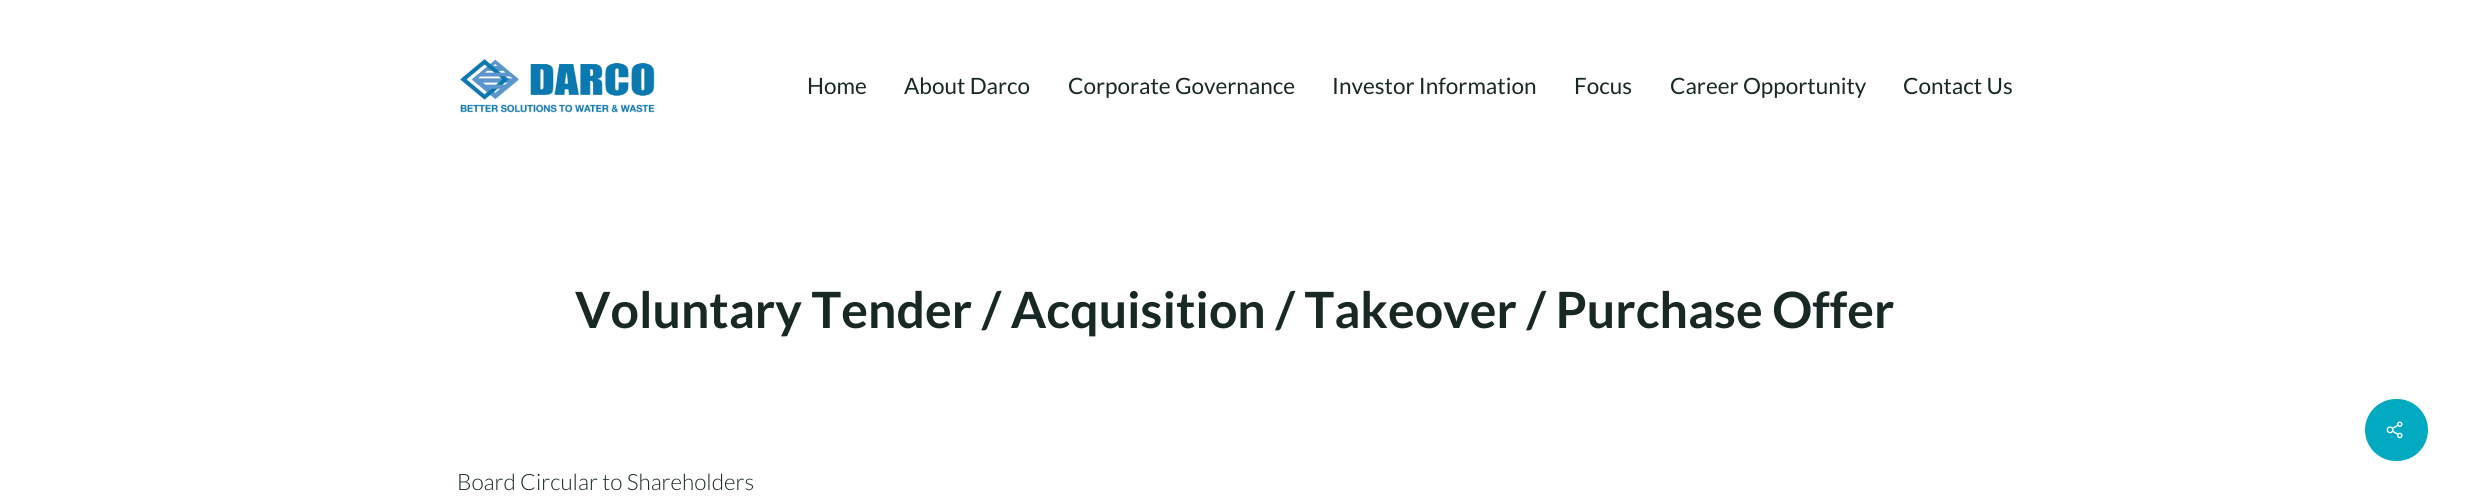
import math
import cairo

surface = cairo.ImageSurface(cairo.Format.RGB24, 2469, 503)
ctx = cairo.Context(surface)
options = cairo.FontOptions()
options.set_hint_metrics(cairo.HintMetrics.OFF)
options.set_hint_style(cairo.HintStyle.NONE)
ctx.set_font_options(options)
ctx.set_miter_limit(4)


def ink(r, g, b):
    ctx.set_source_rgb(r / 255, g / 255, b / 255)


def write(x, y, s, family, size, color, bold=False, italic=False):
    ctx.select_font_face(family, cairo.FontSlant.ITALIC if italic else cairo.FontSlant.NORMAL, cairo.FontWeight.BOLD if bold else cairo.FontWeight.NORMAL)
    ctx.set_font_size(size)
    ink(*color)
    ctx.move_to(x, y)
    ctx.show_text(s)


def round_path(x, y, w, h, r):
    ctx.new_sub_path()
    for i, (u, v) in enumerate([(x + w - r, y + h - r), (x + r, y + h - r), (x + r, y + r), (x + w - r, y + r)]):
        ctx.arc(u, v, r, i * math.pi / 2, (i + 1) * math.pi / 2)
    ctx.close_path()


def paste(path, x, y, w, h):
    ctx.save()
    ctx.set_source_surface(cairo.ImageSurface.create_from_png(path), x, y)
    ctx.rectangle(x, y, w, h)
    ctx.fill()
    ctx.restore()


s1 = dict(family="Lato", size=22.5, color=(24, 40, 37))
s2 = dict(family="Lato", size=50, color=(24, 40, 37), bold=True)
s3 = dict(family="Lato Light", size=22.5, color=(24, 40, 37))

ink(255, 255, 255)
ctx.paint()
paste("pic1.png", 460, 59, 195, 54)
write(807, 94, "Home", **s1)
write(904, 94, "About Darco", **s1)
write(1068, 94, "Corporate Governance", **s1)
write(1332, 94, "Investor Information", **s1)
write(1574, 94, "Focus", **s1)
write(1670, 94, "Career Opportunity", **s1)
write(1903, 94, "Contact Us", **s1)
write(575, 328, "Voluntary Tender / Acquisition / Takeover / Purchase Offer", **s2)
write(457, 490, "Board Circular to Shareholders", **s3)
ink(1, 169, 193)
round_path(2365, 399, 63, 62, 31)
ctx.fill()
paste("pic2.png", 2386, 421, 17, 18)
surface.write_to_png("screenshot.png")
